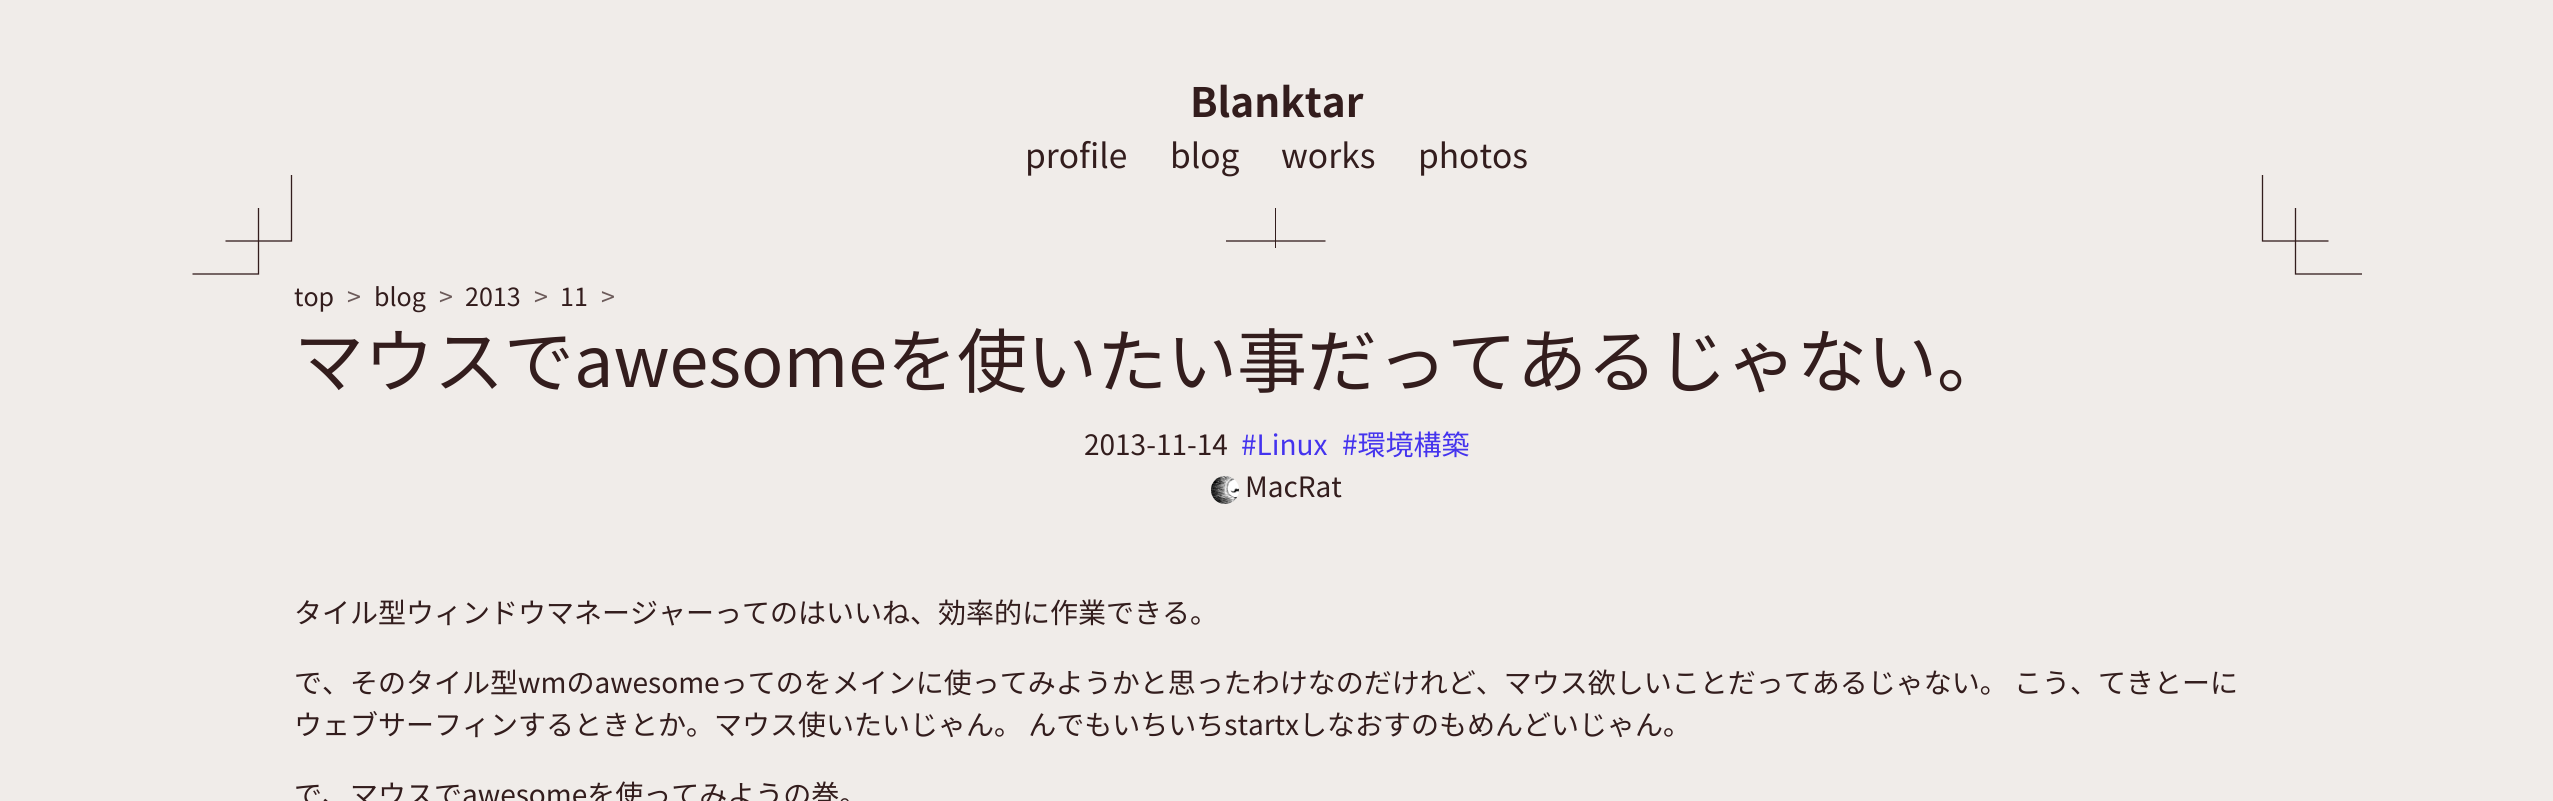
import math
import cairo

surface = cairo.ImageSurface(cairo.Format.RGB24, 2553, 801)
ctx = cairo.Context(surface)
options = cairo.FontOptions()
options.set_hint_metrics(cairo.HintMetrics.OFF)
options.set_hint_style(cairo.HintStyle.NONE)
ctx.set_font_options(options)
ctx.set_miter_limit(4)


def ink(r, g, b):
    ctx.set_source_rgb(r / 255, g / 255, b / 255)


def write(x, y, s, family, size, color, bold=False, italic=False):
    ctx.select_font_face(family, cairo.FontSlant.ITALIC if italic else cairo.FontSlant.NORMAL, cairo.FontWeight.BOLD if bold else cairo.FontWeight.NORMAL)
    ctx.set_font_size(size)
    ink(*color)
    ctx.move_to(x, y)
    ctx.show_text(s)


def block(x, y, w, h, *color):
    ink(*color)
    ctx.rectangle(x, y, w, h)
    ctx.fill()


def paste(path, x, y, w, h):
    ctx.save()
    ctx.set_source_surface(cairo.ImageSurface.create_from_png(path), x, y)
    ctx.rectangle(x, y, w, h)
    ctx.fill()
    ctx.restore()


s1 = dict(family="Noto Sans JP", size=40.5, color=(51, 29, 29), bold=True)
s2 = dict(family="Noto Sans JP", size=33.5, color=(51, 29, 29))
s3 = dict(family="Noto Sans JP", size=25, color=(51, 29, 29))
s4 = dict(family="Noto Sans JP", size=25, color=(108, 91, 90))
s5 = dict(family="Noto Sans JP", size=70, color=(51, 29, 29))
s6 = dict(family="Noto Sans JP", size=28, color=(51, 29, 29))
s7 = dict(family="Noto Sans JP", size=28, color=(68, 51, 238))

ink(240, 236, 233)
ctx.paint()
write(1190, 117, "Blanktar", **s1)
write(1025, 168, "profile", **s2)
write(1170, 168, "blog", **s2)
write(1281, 168, "works", **s2)
write(1418, 168, "photos", **s2)
ctx.new_path()
ctx.move_to(291.5, 175)
ctx.line_to(291.5, 241)
ctx.line_to(225.5, 241)
ctx.set_line_width(1.3)
ctx.stroke()
ctx.new_path()
ctx.move_to(258.5, 208)
ctx.line_to(258.5, 274)
ctx.line_to(192.5, 274)
ctx.stroke()
ctx.new_path()
ctx.move_to(1226, 241)
ctx.line_to(1325.5, 241)
ctx.stroke()
block(1275, 208, 1, 40, 51, 29, 29)
ctx.new_path()
ctx.move_to(2262.5, 175)
ctx.line_to(2262.5, 241)
ctx.line_to(2328.5, 241)
ctx.stroke()
ctx.new_path()
ctx.move_to(2295.5, 208)
ctx.line_to(2295.5, 274)
ctx.line_to(2362, 274)
ctx.stroke()
write(294, 306, "top", **s3)
write(347, 306, ">", **s4)
write(374, 306, "blog", **s3)
write(439, 306, ">", **s4)
write(465, 306, "2013", **s3)
write(534, 306, ">", **s4)
write(560, 306, "11", **s3)
write(601, 306, ">", **s4)
write(294, 387, "マウスでawesomeを使いたい事だってあるじゃない。", **s5)
write(1084, 455, "2013-11-14", **s6)
write(1241, 455, "#Linux", **s7)
write(1342, 455, "#環境構築", **s7)
paste("pic1.png", 1211, 476, 28, 28)
write(1245, 497, "MacRat", **s6)
write(294, 623, "タイル型ウィンドウマネージャーってのはいいね、効率的に作業できる。", **s6)
write(294, 693, "で、そのタイル型wmのawesomeってのをメインに使ってみようかと思ったわけなのだけれど、マウス欲しいことだってあるじゃない。 こう、てきとーに", **s6)
write(294, 735, "ウェブサーフィンするときとか。マウス使いたいじゃん。 んでもいちいちstartxしなおすのもめんどいじゃん。", **s6)
write(294, 805, "で、マウスでawesomeを使ってみようの巻。", **s6)
surface.write_to_png("screenshot.png")
